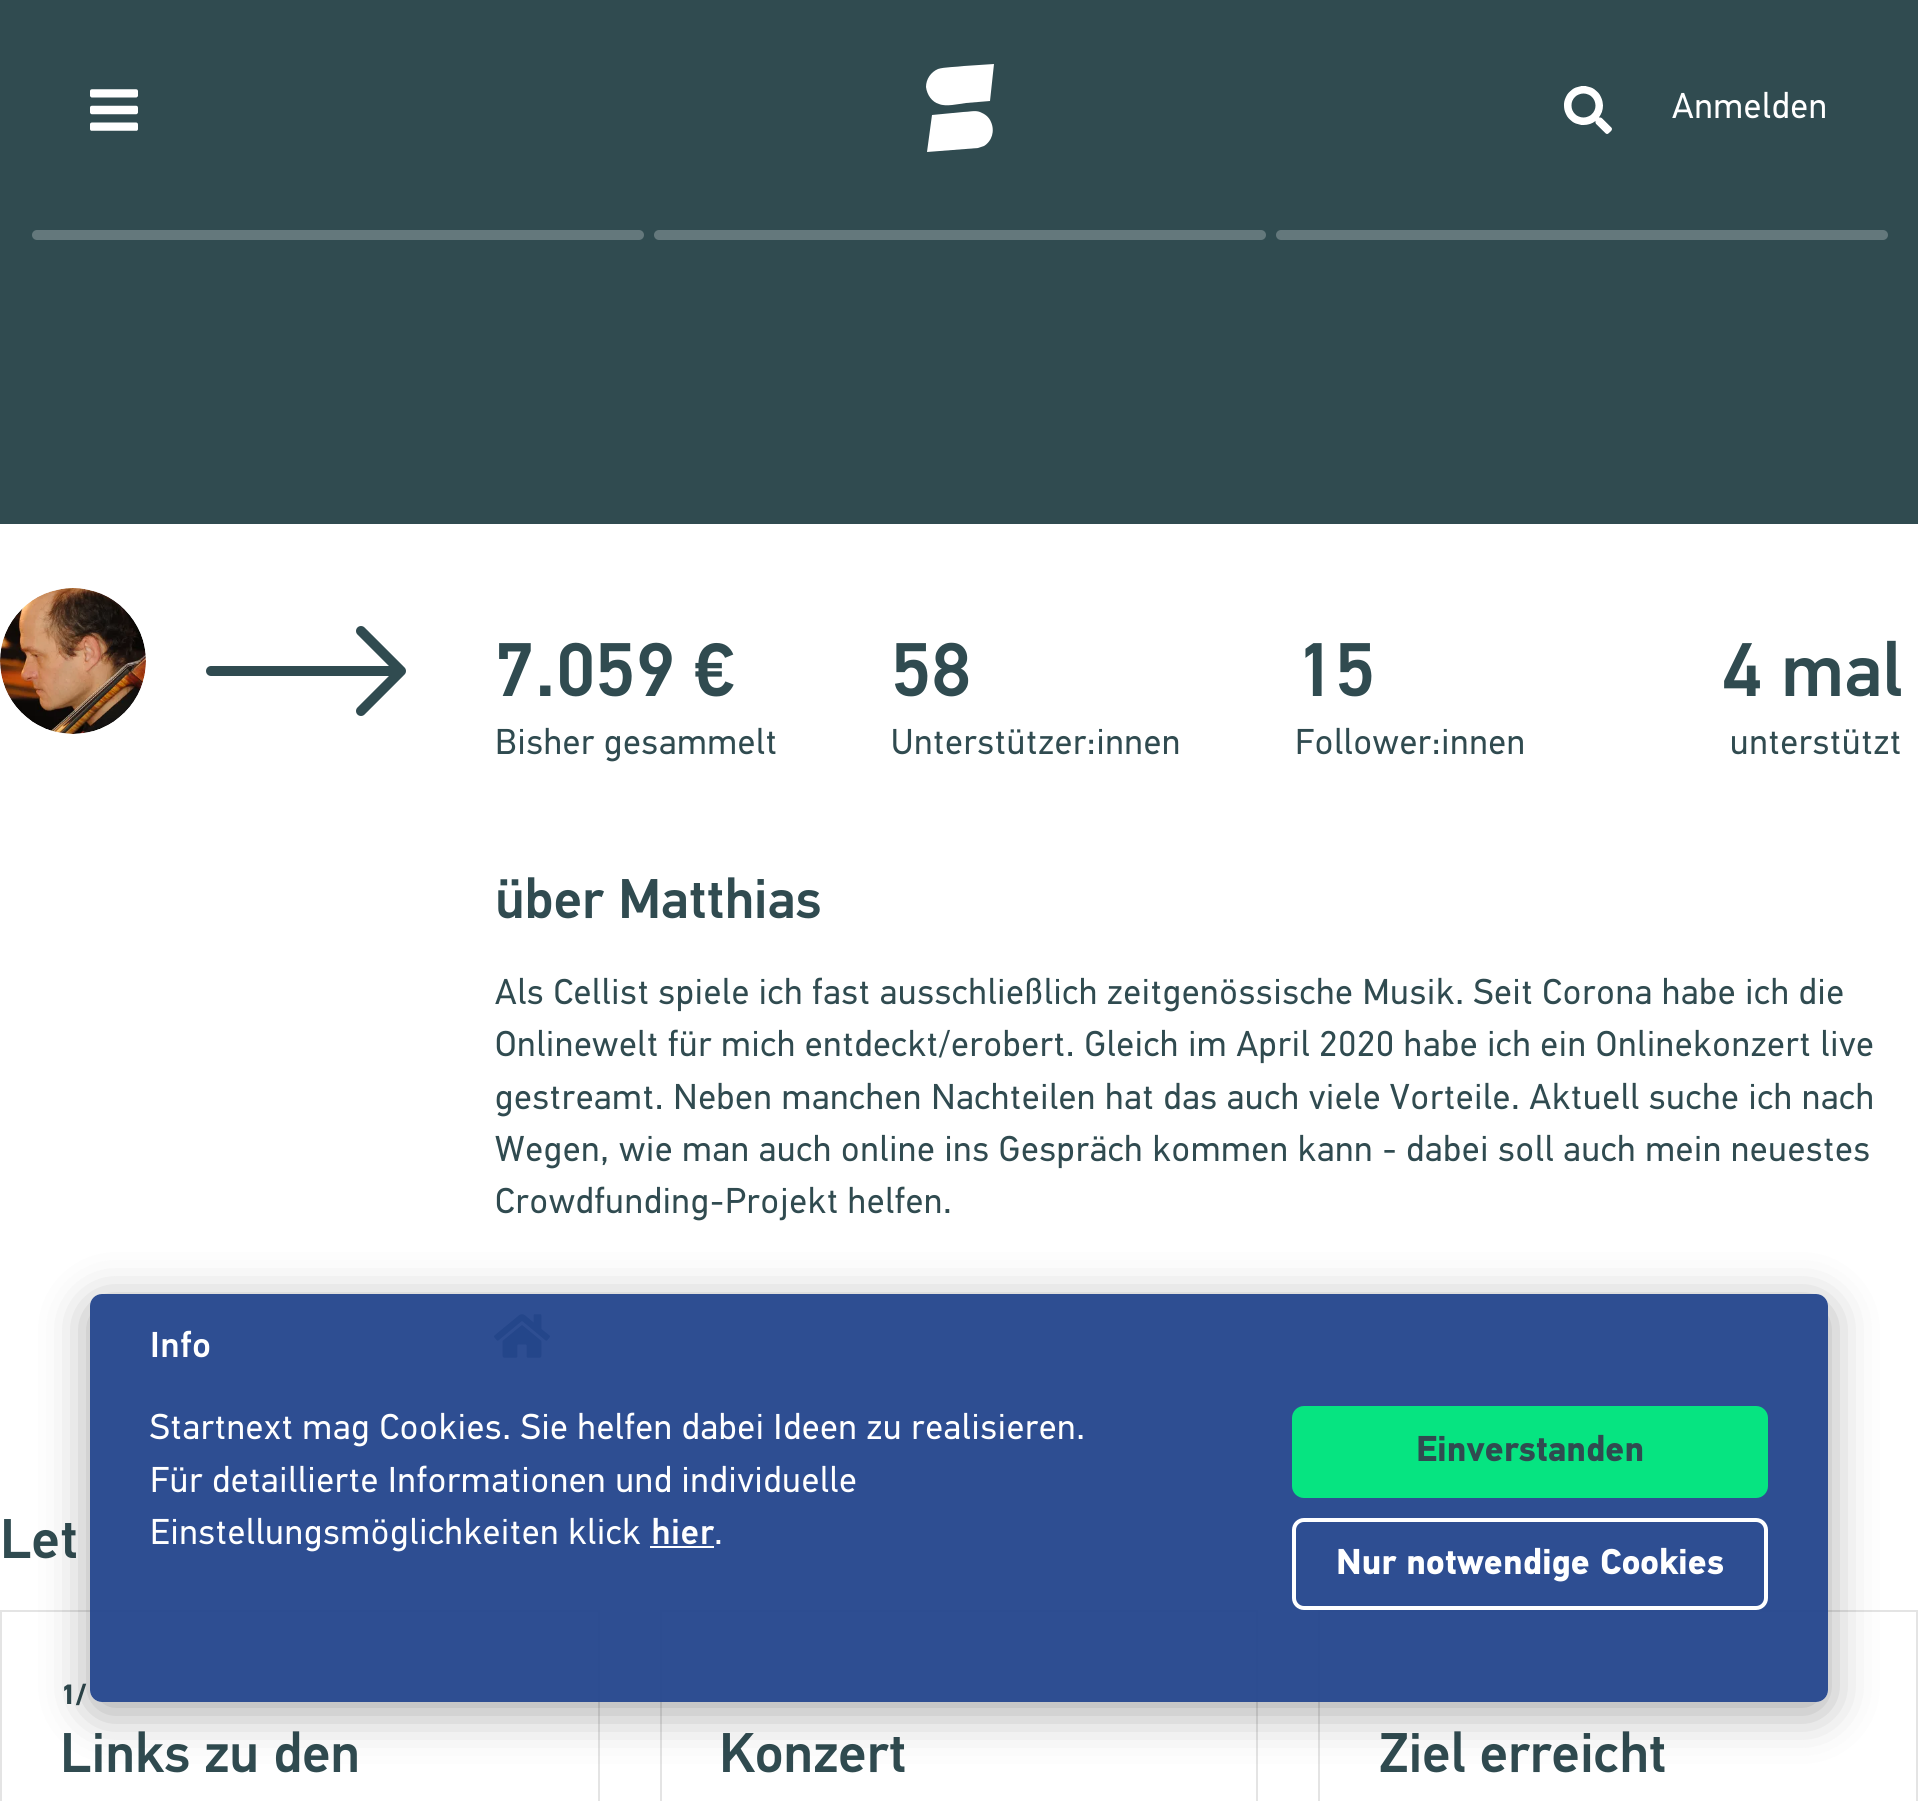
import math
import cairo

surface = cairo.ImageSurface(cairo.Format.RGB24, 1918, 1801)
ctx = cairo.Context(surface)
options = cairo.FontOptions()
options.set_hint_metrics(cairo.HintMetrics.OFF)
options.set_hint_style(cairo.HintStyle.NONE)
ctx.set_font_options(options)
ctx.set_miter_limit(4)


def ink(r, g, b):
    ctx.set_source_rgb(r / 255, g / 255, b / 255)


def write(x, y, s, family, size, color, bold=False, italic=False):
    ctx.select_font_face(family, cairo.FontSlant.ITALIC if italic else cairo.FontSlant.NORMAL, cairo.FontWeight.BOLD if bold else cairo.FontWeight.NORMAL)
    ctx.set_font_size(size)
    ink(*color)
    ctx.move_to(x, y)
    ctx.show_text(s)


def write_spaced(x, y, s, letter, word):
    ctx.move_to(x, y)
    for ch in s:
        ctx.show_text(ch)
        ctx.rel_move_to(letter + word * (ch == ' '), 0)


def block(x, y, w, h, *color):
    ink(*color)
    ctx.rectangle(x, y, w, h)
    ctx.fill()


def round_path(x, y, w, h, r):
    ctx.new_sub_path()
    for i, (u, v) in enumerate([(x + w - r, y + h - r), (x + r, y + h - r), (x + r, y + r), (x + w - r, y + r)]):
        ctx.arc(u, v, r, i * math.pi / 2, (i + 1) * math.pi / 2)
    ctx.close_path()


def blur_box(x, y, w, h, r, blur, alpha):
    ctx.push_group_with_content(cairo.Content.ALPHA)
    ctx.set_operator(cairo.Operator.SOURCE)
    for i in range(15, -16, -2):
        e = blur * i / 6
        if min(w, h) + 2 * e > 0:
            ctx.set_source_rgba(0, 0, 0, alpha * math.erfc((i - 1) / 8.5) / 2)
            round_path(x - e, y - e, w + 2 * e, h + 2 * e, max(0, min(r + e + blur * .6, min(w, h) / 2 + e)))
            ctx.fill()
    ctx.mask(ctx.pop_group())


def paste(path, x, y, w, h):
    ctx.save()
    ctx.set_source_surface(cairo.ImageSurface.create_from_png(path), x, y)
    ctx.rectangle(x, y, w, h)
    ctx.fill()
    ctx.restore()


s1 = dict(family="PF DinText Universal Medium", size=76, color=(48, 75, 80))
s2 = dict(family="PF DinText Universal Medium", size=56, color=(48, 75, 80))
s3 = dict(family="PF DinText Universal", size=36, color=(48, 75, 80), bold=True)
s4 = dict(family="PF DinText Universal", size=36, color=(255, 255, 255), bold=True)

ink(48, 75, 80)
ctx.paint()
paste("pic1.png", 90, 89, 48, 42)
ink(255, 255, 255)
ctx.new_path()
ctx.move_to(994, 64)
ctx.line_to(990, 101)
ctx.line_to(966, 103)
ctx.curve_to(958, 104, 946, 107, 939, 104)
ctx.curve_to(932, 102, 927, 95, 926, 87)
ctx.curve_to(926, 79, 931, 72, 938, 69)
ctx.curve_to(944, 67, 957, 67, 964, 66)
ctx.close_path()
ctx.fill()
ctx.new_path()
ctx.move_to(927, 152)
ctx.line_to(932, 115)
ctx.line_to(963, 112)
ctx.curve_to(969, 112, 975, 110, 980, 112)
ctx.curve_to(985, 114, 989, 117, 991, 122)
ctx.curve_to(995, 131, 992, 141, 984, 146)
ctx.line_to(978, 148)
ctx.close_path()
ctx.fill()
paste("pic2.png", 1564, 86, 48, 48)
ctx.select_font_face("PF DinText Universal")
ctx.set_font_size(36)
write_spaced(1672, 118, "Anmelden", 0.9, 0)
ink(100, 120, 124)
round_path(32, 230, 612, 10, 5)
ctx.fill()
round_path(654, 230, 612, 10, 5)
ctx.fill()
round_path(1276, 230, 612, 10, 5)
ctx.fill()
block(0, 524, 1918, 1277, 255, 255, 255)
ink(245, 245, 245)
ctx.arc(73, 661, 73, 0, 2 * math.pi)
ctx.fill()
paste("pic3.png", 0, 588, 146, 146)
ctx.new_path()
ctx.move_to(393, 671)
ctx.line_to(211, 671)
ctx.move_to(361, 631)
ctx.line_to(401, 671)
ctx.move_to(361, 711)
ctx.line_to(401, 671)
ink(48, 75, 80)
ctx.set_line_width(10)
ctx.set_line_cap(cairo.LineCap.ROUND)
ctx.stroke()
write(495, 696, "7.059 €", **s1)
ctx.select_font_face("PF DinText Universal")
ctx.set_font_size(36)
write_spaced(495, 754, "Bisher gesammelt", 0.9, 0)
write(891, 696, "58", **s1)
ctx.select_font_face("PF DinText Universal")
ctx.set_font_size(36)
write_spaced(891, 754, "Unterstützer:innen", 0.9, 0)
write(1295, 696, "15", **s1)
ctx.select_font_face("PF DinText Universal")
ctx.set_font_size(36)
write_spaced(1295, 754, "Follower:innen", 0.9, 0)
write(1722, 696, "4 mal", **s1)
ctx.select_font_face("PF DinText Universal")
ctx.set_font_size(36)
write_spaced(1730, 754, "unterstützt", 0.9, 0)
write(495, 918, "über Matthias", **s2)
ctx.select_font_face("PF DinText Universal")
ctx.set_font_size(36)
write_spaced(495, 1004, "Als Cellist spiele ich fast ausschließlich zeitgenössische Musik. Seit Corona habe ich die", 0.9, 0)
write_spaced(495, 1056, "Onlinewelt für mich entdeckt/erobert. Gleich im April 2020 habe ich ein Onlinekonzert live", 0.9, 0)
write_spaced(495, 1109, "gestreamt. Neben manchen Nachteilen hat das auch viele Vorteile. Aktuell suche ich nach", 0.9, 0)
write_spaced(495, 1161, "Wegen, wie man auch online ins Gespräch kommen kann - dabei soll auch mein neuestes", 0.9, 0)
write_spaced(495, 1213, "Crowdfunding-Projekt helfen.", 0.9, 0)
paste("pic4.png", 494, 1314, 56, 44)
write(0, 1558, "Let", **s2)
ctx.rectangle(1, 1611, 598, 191)
ink(228, 228, 228)
ctx.set_line_width(2)
ctx.set_line_cap(cairo.LineCap.BUTT)
ctx.stroke()
ctx.select_font_face("PF DinText Universal", cairo.FontSlant.NORMAL, cairo.FontWeight.BOLD)
ctx.set_font_size(28)
ink(48, 75, 80)
write_spaced(60, 1704, "1/", 0.9, 0)
write(60, 1772, "Links zu den", **s2)
ctx.rectangle(661, 1611, 596, 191)
ink(228, 228, 228)
ctx.stroke()
write(719, 1772, "Konzert", **s2)
ctx.rectangle(1319, 1611, 598, 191)
ink(228, 228, 228)
ctx.stroke()
write(1379, 1772, "Ziel erreicht", **s2)
ctx.save()
ctx.set_fill_rule(cairo.FillRule.EVEN_ODD)
ctx.new_path()
ctx.move_to(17, 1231)
ctx.line_to(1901, 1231)
ctx.line_to(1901, 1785)
ctx.line_to(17, 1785)
ctx.close_path()
ctx.move_to(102, 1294)
ctx.line_to(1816, 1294)
ctx.curve_to(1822.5, 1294, 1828, 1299.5, 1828, 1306)
ctx.line_to(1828, 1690)
ctx.curve_to(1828, 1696.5, 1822.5, 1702, 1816, 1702)
ctx.line_to(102, 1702)
ctx.curve_to(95.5, 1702, 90, 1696.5, 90, 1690)
ctx.line_to(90, 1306)
ctx.curve_to(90, 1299.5, 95.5, 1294, 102, 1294)
ctx.close_path()
ctx.clip()
ink(0, 0, 0)
blur_box(90, 1304, 1738, 408, 12, 24, 0.35)
ctx.restore()
ctx.set_source_rgba(0.141, 0.275, 0.553, 0.95)
round_path(90, 1294, 1738, 408, 12)
ctx.fill()
ctx.set_font_size(36)
ink(255, 255, 255)
write_spaced(150, 1357, "Info", 0.9, 0)
ctx.select_font_face("PF DinText Universal")
write_spaced(150, 1439, "Startnext mag Cookies. Sie helfen dabei Ideen zu realisieren.", 0.9, 0)
write_spaced(150, 1492, "Für detaillierte Informationen und individuelle", 0.9, 0)
write_spaced(150, 1544, "Einstellungsmöglichkeiten klick", 0.9, 0)
ctx.select_font_face("PF DinText Universal Medium")
write_spaced(651, 1544, "hier", 0.9, 0)
block(650, 1546, 64, 2, 255, 255, 255)
ctx.select_font_face("PF DinText Universal")
write_spaced(714, 1544, ".", 0.9, 0)
ink(6, 228, 129)
round_path(1294, 1408, 472, 88, 10)
ctx.fill_preserve()
ctx.set_line_width(4)
ctx.stroke()
write(1416, 1461, "Einverstanden", **s3)
round_path(1294, 1520, 472, 88, 10)
ink(255, 255, 255)
ctx.stroke()
write(1336, 1574, "Nur notwendige Cookies", **s4)
surface.write_to_png("screenshot.png")
